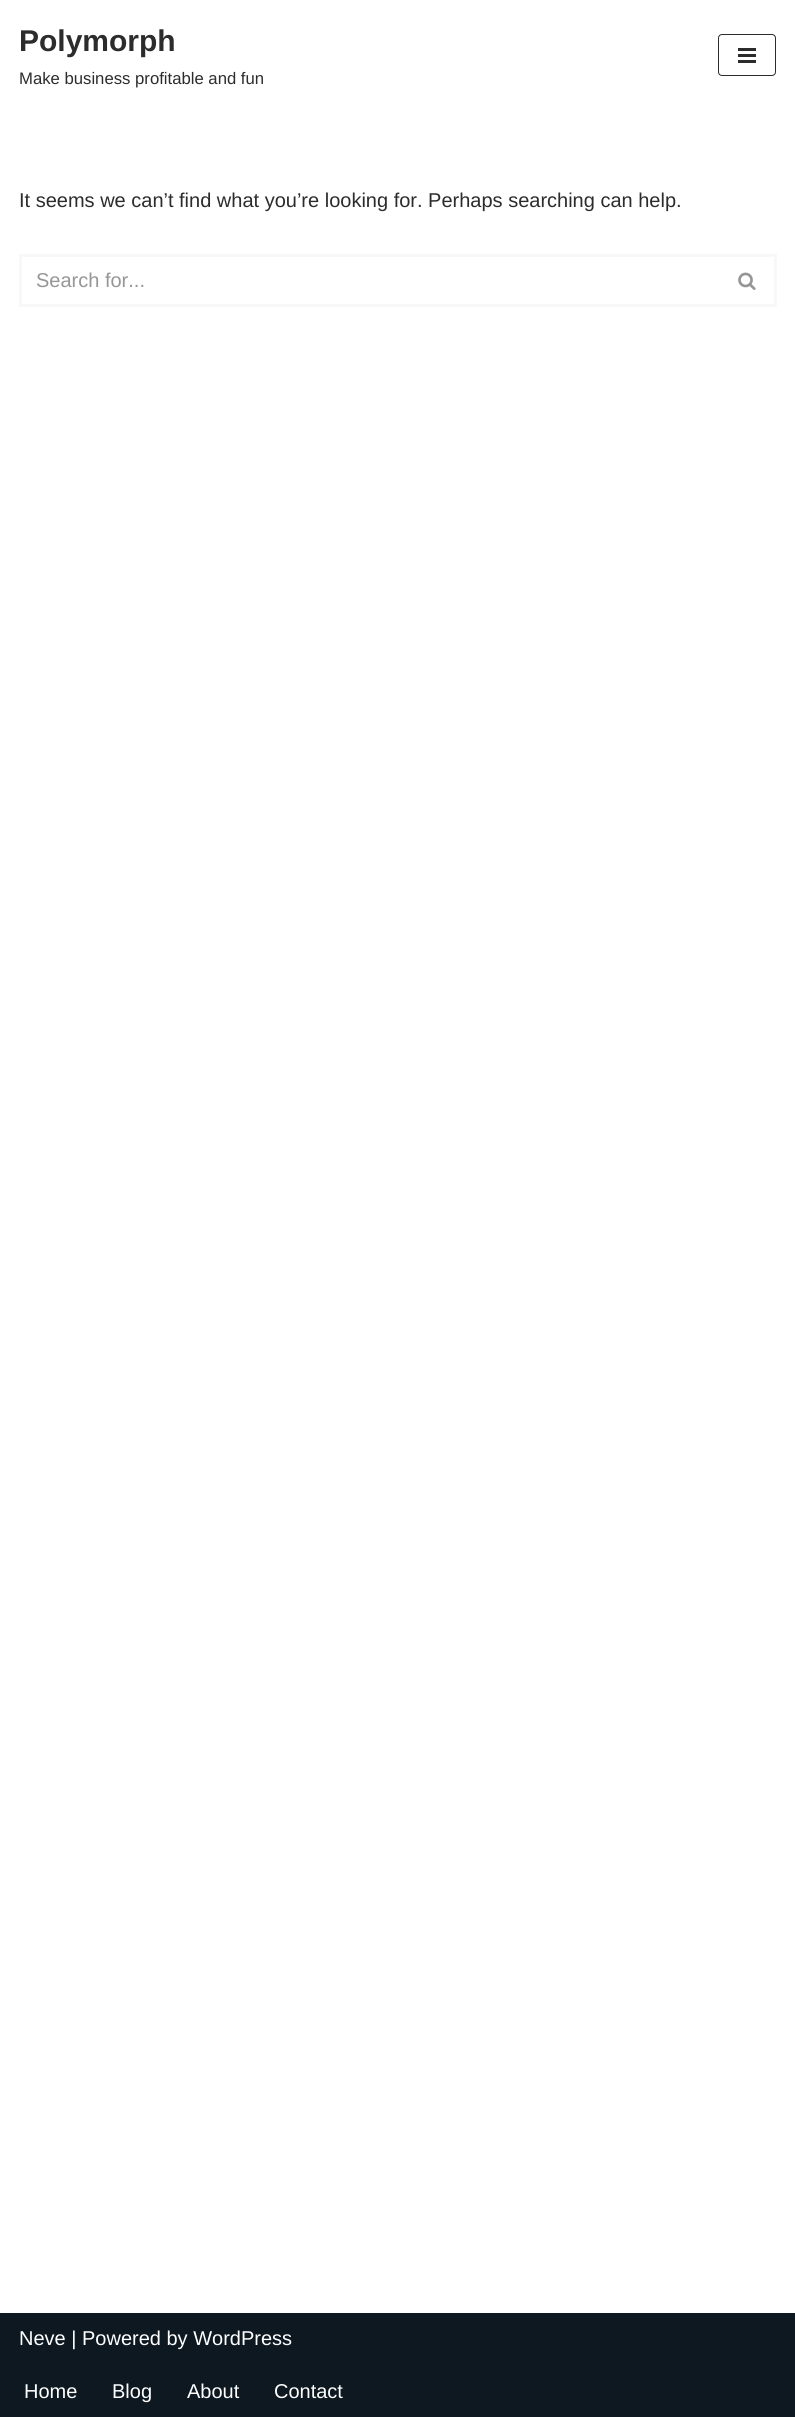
import math
import cairo

surface = cairo.ImageSurface(cairo.Format.RGB24, 795, 2417)
ctx = cairo.Context(surface)
options = cairo.FontOptions()
options.set_hint_metrics(cairo.HintMetrics.OFF)
options.set_hint_style(cairo.HintStyle.NONE)
ctx.set_font_options(options)
ctx.set_miter_limit(4)


def ink(r, g, b):
    ctx.set_source_rgb(r / 255, g / 255, b / 255)


def write(x, y, s, family, size, color, bold=False, italic=False):
    ctx.select_font_face(family, cairo.FontSlant.ITALIC if italic else cairo.FontSlant.NORMAL, cairo.FontWeight.BOLD if bold else cairo.FontWeight.NORMAL)
    ctx.set_font_size(size)
    ink(*color)
    ctx.move_to(x, y)
    ctx.show_text(s)


def block(x, y, w, h, *color):
    ink(*color)
    ctx.rectangle(x, y, w, h)
    ctx.fill()


def round_path(x, y, w, h, r):
    ctx.new_sub_path()
    for i, (u, v) in enumerate([(x + w - r, y + h - r), (x + r, y + h - r), (x + r, y + r), (x + w - r, y + r)]):
        ctx.arc(u, v, r, i * math.pi / 2, (i + 1) * math.pi / 2)
    ctx.close_path()


def paste(path, x, y, w, h):
    ctx.save()
    ctx.set_source_surface(cairo.ImageSurface.create_from_png(path), x, y)
    ctx.rectangle(x, y, w, h)
    ctx.fill()
    ctx.restore()


s1 = dict(family="Liberation Sans", size=30, color=(44, 44, 44), bold=True)
s2 = dict(family="Liberation Sans", size=16.7, color=(44, 44, 44))
s3 = dict(family="Liberation Sans", size=20, color=(44, 44, 44))
s4 = dict(family="Liberation Sans", size=20, color=(150, 150, 150))
s5 = dict(family="Liberation Sans", size=20, color=(255, 255, 255))

ink(255, 255, 255)
ctx.paint()
write(19, 51, "Polymorph", **s1)
write(19, 84, "Make business profitable and fun", **s2)
round_path(718.5, 34.5, 57, 41, 3.5)
ctx.set_line_width(1)
ctx.stroke()
block(738, 48, 18, 3, 44, 44, 44)
block(738, 54, 18, 3, 44, 44, 44)
block(738, 60, 18, 3, 44, 44, 44)
write(19, 207, "It seems we can’t find what you’re looking for. Perhaps searching can help.", **s3)
block(19, 254, 757, 3, 248, 248, 248)
block(19, 304, 701, 3, 248, 248, 248)
block(19, 254, 3, 52, 248, 248, 248)
write(36, 287, "Search for...", **s4)
block(774, 254, 3, 52, 248, 248, 248)
block(720, 304, 56, 3, 248, 248, 248)
paste("pic1.png", 738, 272, 18, 18)
block(0, 2313, 795, 104, 13, 24, 33)
write(19, 2345, "Neve | Powered by WordPress", **s5)
write(24, 2398, "Home", **s5)
write(112, 2398, "Blog", **s5)
write(187, 2398, "About", **s5)
write(274, 2398, "Contact", **s5)
surface.write_to_png("screenshot.png")
